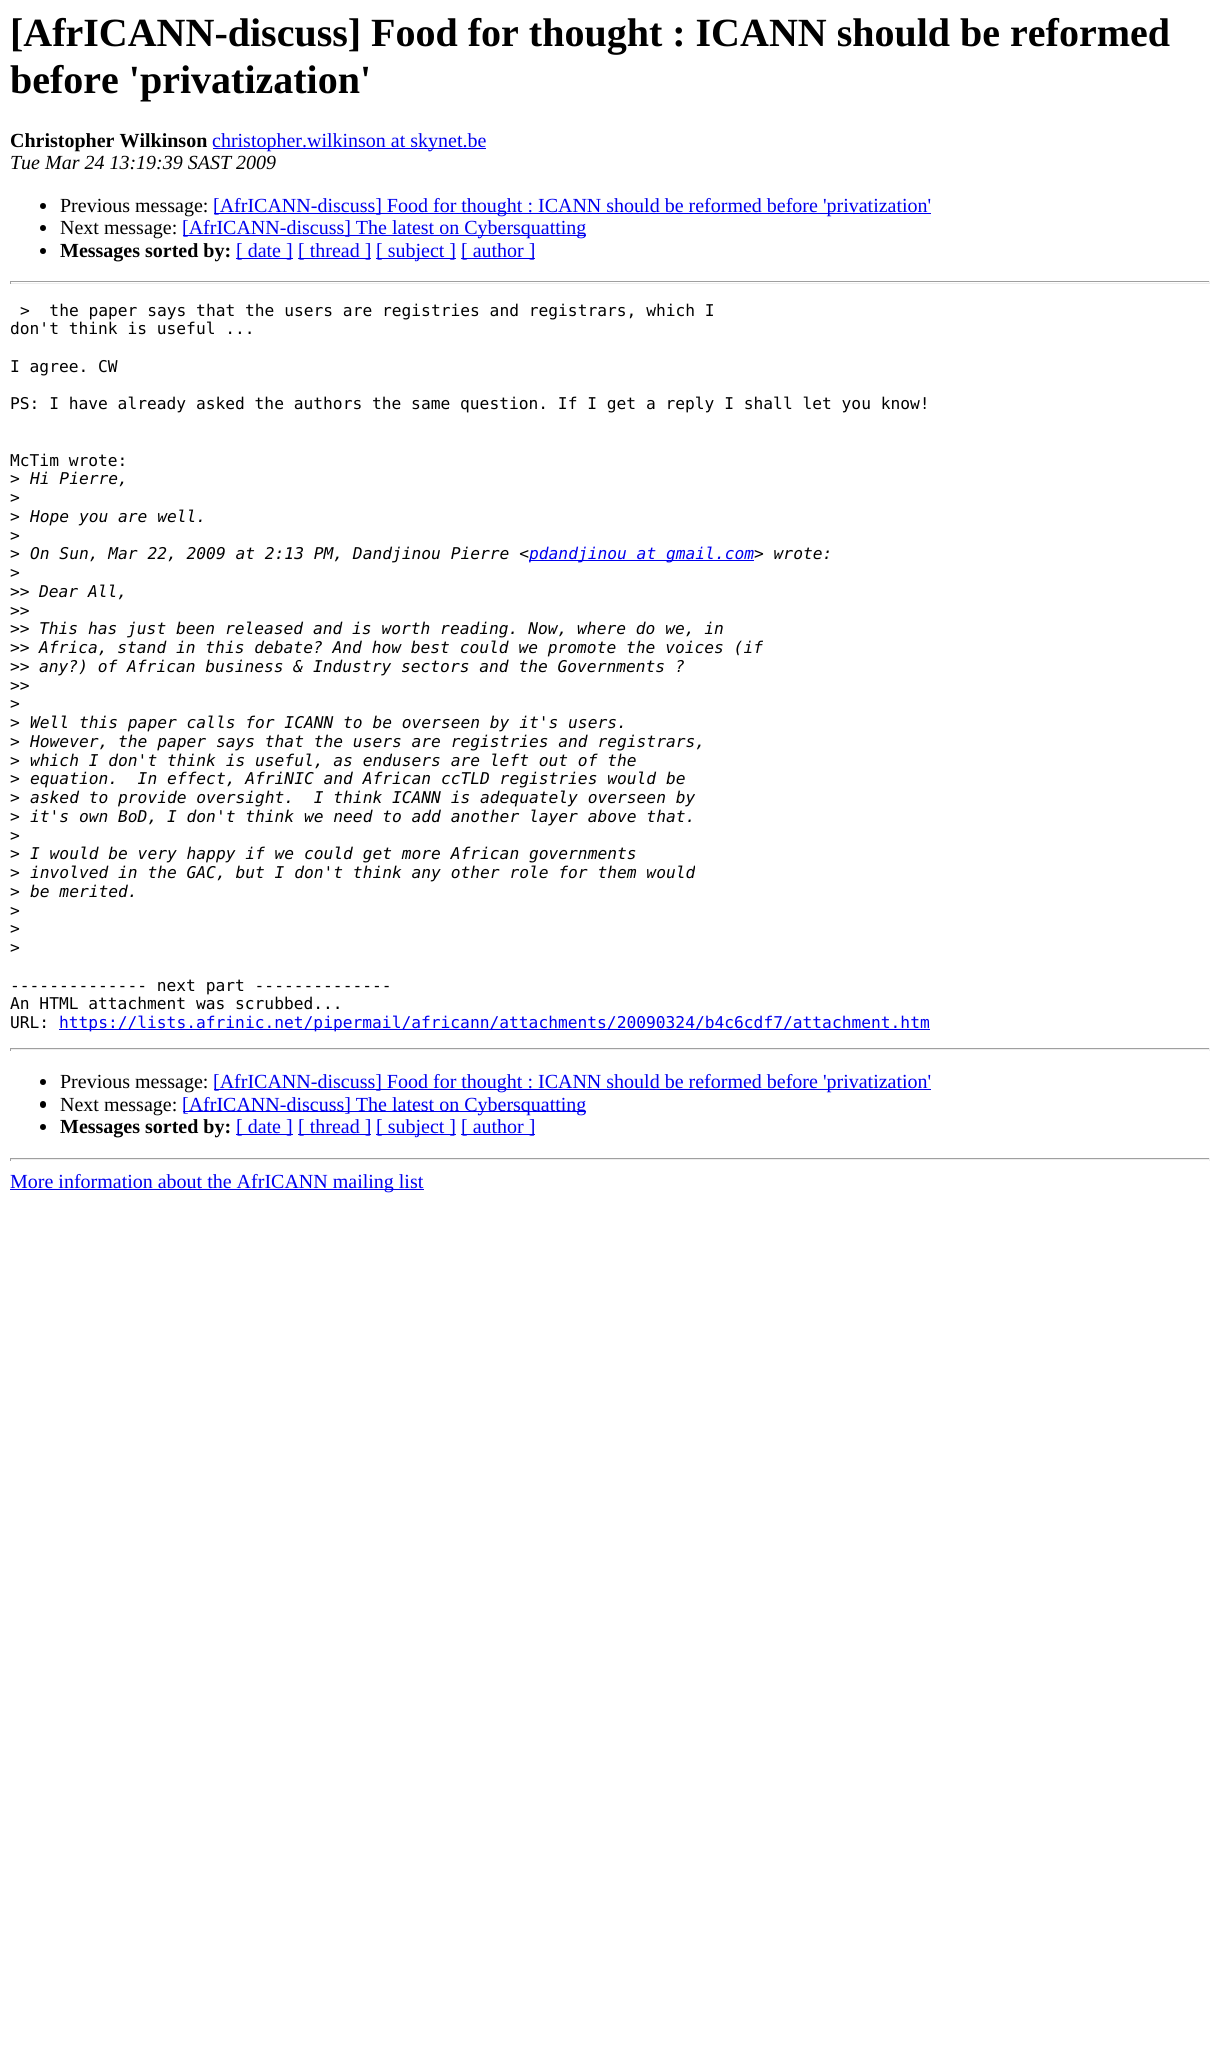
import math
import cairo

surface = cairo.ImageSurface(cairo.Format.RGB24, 1220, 2058)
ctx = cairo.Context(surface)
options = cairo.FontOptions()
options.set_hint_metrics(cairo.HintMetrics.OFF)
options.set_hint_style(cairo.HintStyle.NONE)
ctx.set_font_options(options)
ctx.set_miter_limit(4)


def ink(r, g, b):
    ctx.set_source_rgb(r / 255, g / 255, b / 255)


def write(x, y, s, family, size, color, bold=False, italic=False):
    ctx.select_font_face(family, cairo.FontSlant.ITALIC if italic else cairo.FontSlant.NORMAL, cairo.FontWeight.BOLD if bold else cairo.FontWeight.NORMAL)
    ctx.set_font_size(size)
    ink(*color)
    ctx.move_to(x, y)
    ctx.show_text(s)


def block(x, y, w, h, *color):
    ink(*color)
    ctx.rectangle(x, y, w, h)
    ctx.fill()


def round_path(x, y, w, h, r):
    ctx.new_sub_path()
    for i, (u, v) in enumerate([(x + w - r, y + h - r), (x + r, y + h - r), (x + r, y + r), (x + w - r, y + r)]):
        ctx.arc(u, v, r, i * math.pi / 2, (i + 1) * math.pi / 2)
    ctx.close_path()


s1 = dict(family="Liberation Serif", size=40, color=(0, 0, 0), bold=True)
s2 = dict(family="Liberation Serif", size=20, color=(0, 0, 0), bold=True)
s3 = dict(family="Liberation Serif", size=20, color=(0, 0, 238))
s4 = dict(family="Liberation Serif", size=20, color=(0, 0, 0), italic=True)
s5 = dict(family="Liberation Serif", size=20, color=(0, 0, 0))
s6 = dict(family="DejaVu Sans Mono", size=16.25, color=(0, 0, 0))
s7 = dict(family="DejaVu Sans Mono", size=16.25, color=(0, 0, 0), italic=True)
s8 = dict(family="DejaVu Sans Mono", size=16.25, color=(0, 0, 238), italic=True)
s9 = dict(family="DejaVu Sans Mono", size=16.25, color=(0, 0, 238))

ink(255, 255, 255)
ctx.paint()
write(10, 46, "[AfrICANN-discuss] Food for thought : ICANN should be reformed", **s1)
write(10, 93, "before 'privatization'", **s1)
write(10, 147, "Christopher Wilkinson", **s2)
block(213, 148, 273, 1, 0, 0, 238)
write(212, 147, "christopher.wilkinson at skynet.be", **s3)
write(10, 169, "Tue Mar 24 13:19:39 SAST 2009", **s4)
ctx.new_path()
ctx.arc(43, 206, 3, 0, 2 * math.pi)
ctx.fill()
write(60, 212, "Previous message:", **s5)
block(214, 213, 717, 1, 0, 0, 238)
write(213, 212, "[AfrICANN-discuss] Food for thought : ICANN should be reformed before 'privatization'", **s3)
ink(0, 0, 0)
ctx.new_path()
ctx.arc(43, 228, 3, 0, 2 * math.pi)
ctx.fill()
write(60, 234, "Next message:", **s5)
block(183, 235, 403, 1, 0, 0, 238)
write(182, 234, "[AfrICANN-discuss] The latest on Cybersquatting", **s3)
ink(0, 0, 0)
ctx.new_path()
ctx.arc(43, 251, 3, 0, 2 * math.pi)
ctx.fill()
write(60, 257, "Messages sorted by:", **s2)
block(236, 258, 57, 1, 0, 0, 238)
write(236, 257, "[ date ]", **s3)
block(298, 258, 73, 1, 0, 0, 238)
write(298, 257, "[ thread ]", **s3)
block(376, 258, 80, 1, 0, 0, 238)
write(376, 257, "[ subject ]", **s3)
block(461, 258, 74, 1, 0, 0, 238)
write(461, 257, "[ author ]", **s3)
block(10, 281, 1200, 1, 159, 159, 159)
block(1209, 281, 1, 3, 238, 238, 238)
block(10, 283, 1200, 1, 238, 238, 238)
block(10, 281, 1, 3, 159, 159, 159)
write(20, 316, ">  the paper says that the users are registries and registrars, which I", **s6)
write(10, 334, "don't think is useful ...", **s6)
write(10, 372, "I agree. CW", **s6)
write(10, 409, "PS: I have already asked the authors the same question. If I get a reply I shall let you know!", **s6)
write(10, 466, "McTim wrote:", **s6)
write(10, 484, ">", **s6)
write(30, 484, "Hi Pierre,", **s7)
write(10, 503, ">", **s6)
write(10, 522, ">", **s6)
write(30, 522, "Hope you are well.", **s7)
write(10, 541, ">", **s6)
write(10, 559, ">", **s6)
write(30, 559, "On Sun, Mar 22, 2009 at 2:13 PM, Dandjinou Pierre <", **s7)
block(529, 560, 225, 1, 0, 0, 238)
write(529, 559, "pdandjinou at gmail.com", **s8)
write(754, 559, "> wrote:", **s7)
write(10, 578, ">", **s6)
write(10, 597, ">>", **s6)
write(39, 597, "Dear All,", **s7)
write(10, 616, ">>", **s6)
write(10, 634, ">>", **s6)
write(39, 634, "This has just been released and is worth reading. Now, where do we, in", **s7)
write(10, 653, ">>", **s6)
write(39, 653, "Africa, stand in this debate? And how best could we promote the voices (if", **s7)
write(10, 672, ">>", **s6)
write(39, 672, "any?) of African business & Industry sectors and the Governments ?", **s7)
write(10, 691, ">>", **s6)
write(10, 709, ">", **s6)
write(10, 728, ">", **s6)
write(30, 728, "Well this paper calls for ICANN to be overseen by it's users.", **s7)
write(10, 747, ">", **s6)
write(30, 747, "However, the paper says that the users are registries and registrars,", **s7)
write(10, 766, ">", **s6)
write(30, 766, "which I don't think is useful, as endusers are left out of the", **s7)
write(10, 784, ">", **s6)
write(30, 784, "equation.  In effect, AfriNIC and African ccTLD registries would be", **s7)
write(10, 803, ">", **s6)
write(30, 803, "asked to provide oversight.  I think ICANN is adequately overseen by", **s7)
write(10, 822, ">", **s6)
write(30, 822, "it's own BoD, I don't think we need to add another layer above that.", **s7)
write(10, 841, ">", **s6)
write(10, 859, ">", **s6)
write(30, 859, "I would be very happy if we could get more African governments", **s7)
write(10, 878, ">", **s6)
write(30, 878, "involved in the GAC, but I don't think any other role for them would", **s7)
write(10, 897, ">", **s6)
write(30, 897, "be merited.", **s7)
write(10, 916, ">", **s6)
write(10, 934, ">", **s6)
write(10, 953, ">", **s6)
write(10, 991, "-------------- next part --------------", **s6)
write(10, 1009, "An HTML attachment was scrubbed...", **s6)
write(10, 1028, "URL:", **s6)
block(59, 1029, 871, 1, 0, 0, 238)
write(59, 1028, "https://lists.afrinic.net/pipermail/africann/attachments/20090324/b4c6cdf7/attachment.htm", **s9)
block(10, 1048, 1200, 1, 159, 159, 159)
block(1209, 1048, 1, 3, 238, 238, 238)
block(10, 1049, 1200, 1, 238, 238, 238)
block(10, 1048, 1, 3, 159, 159, 159)
ink(0, 0, 0)
ctx.new_path()
ctx.arc(43, 1082, 3, 0, 2 * math.pi)
ctx.fill()
write(60, 1088, "Previous message:", **s5)
block(214, 1089, 717, 1, 0, 0, 238)
write(213, 1088, "[AfrICANN-discuss] Food for thought : ICANN should be reformed before 'privatization'", **s3)
ink(0, 0, 0)
round_path(40, 1101, 6, 7, 3)
ctx.fill()
write(60, 1111, "Next message:", **s5)
block(183, 1111, 403, 1, 0, 0, 238)
write(182, 1111, "[AfrICANN-discuss] The latest on Cybersquatting", **s3)
ink(0, 0, 0)
ctx.new_path()
ctx.arc(43, 1127, 3, 0, 2 * math.pi)
ctx.fill()
write(60, 1133, "Messages sorted by:", **s2)
block(236, 1134, 57, 1, 0, 0, 238)
write(236, 1133, "[ date ]", **s3)
block(298, 1134, 73, 1, 0, 0, 238)
write(298, 1133, "[ thread ]", **s3)
block(376, 1134, 80, 1, 0, 0, 238)
write(376, 1133, "[ subject ]", **s3)
block(461, 1134, 74, 1, 0, 0, 238)
write(461, 1133, "[ author ]", **s3)
block(10, 1158, 1200, 1, 159, 159, 159)
block(1209, 1158, 1, 3, 238, 238, 238)
block(10, 1159, 1200, 1, 238, 238, 238)
block(10, 1158, 1, 3, 159, 159, 159)
block(10, 1189, 414, 1, 0, 0, 238)
write(10, 1188, "More information about the AfrICANN mailing list", **s3)
surface.write_to_png("screenshot.png")
